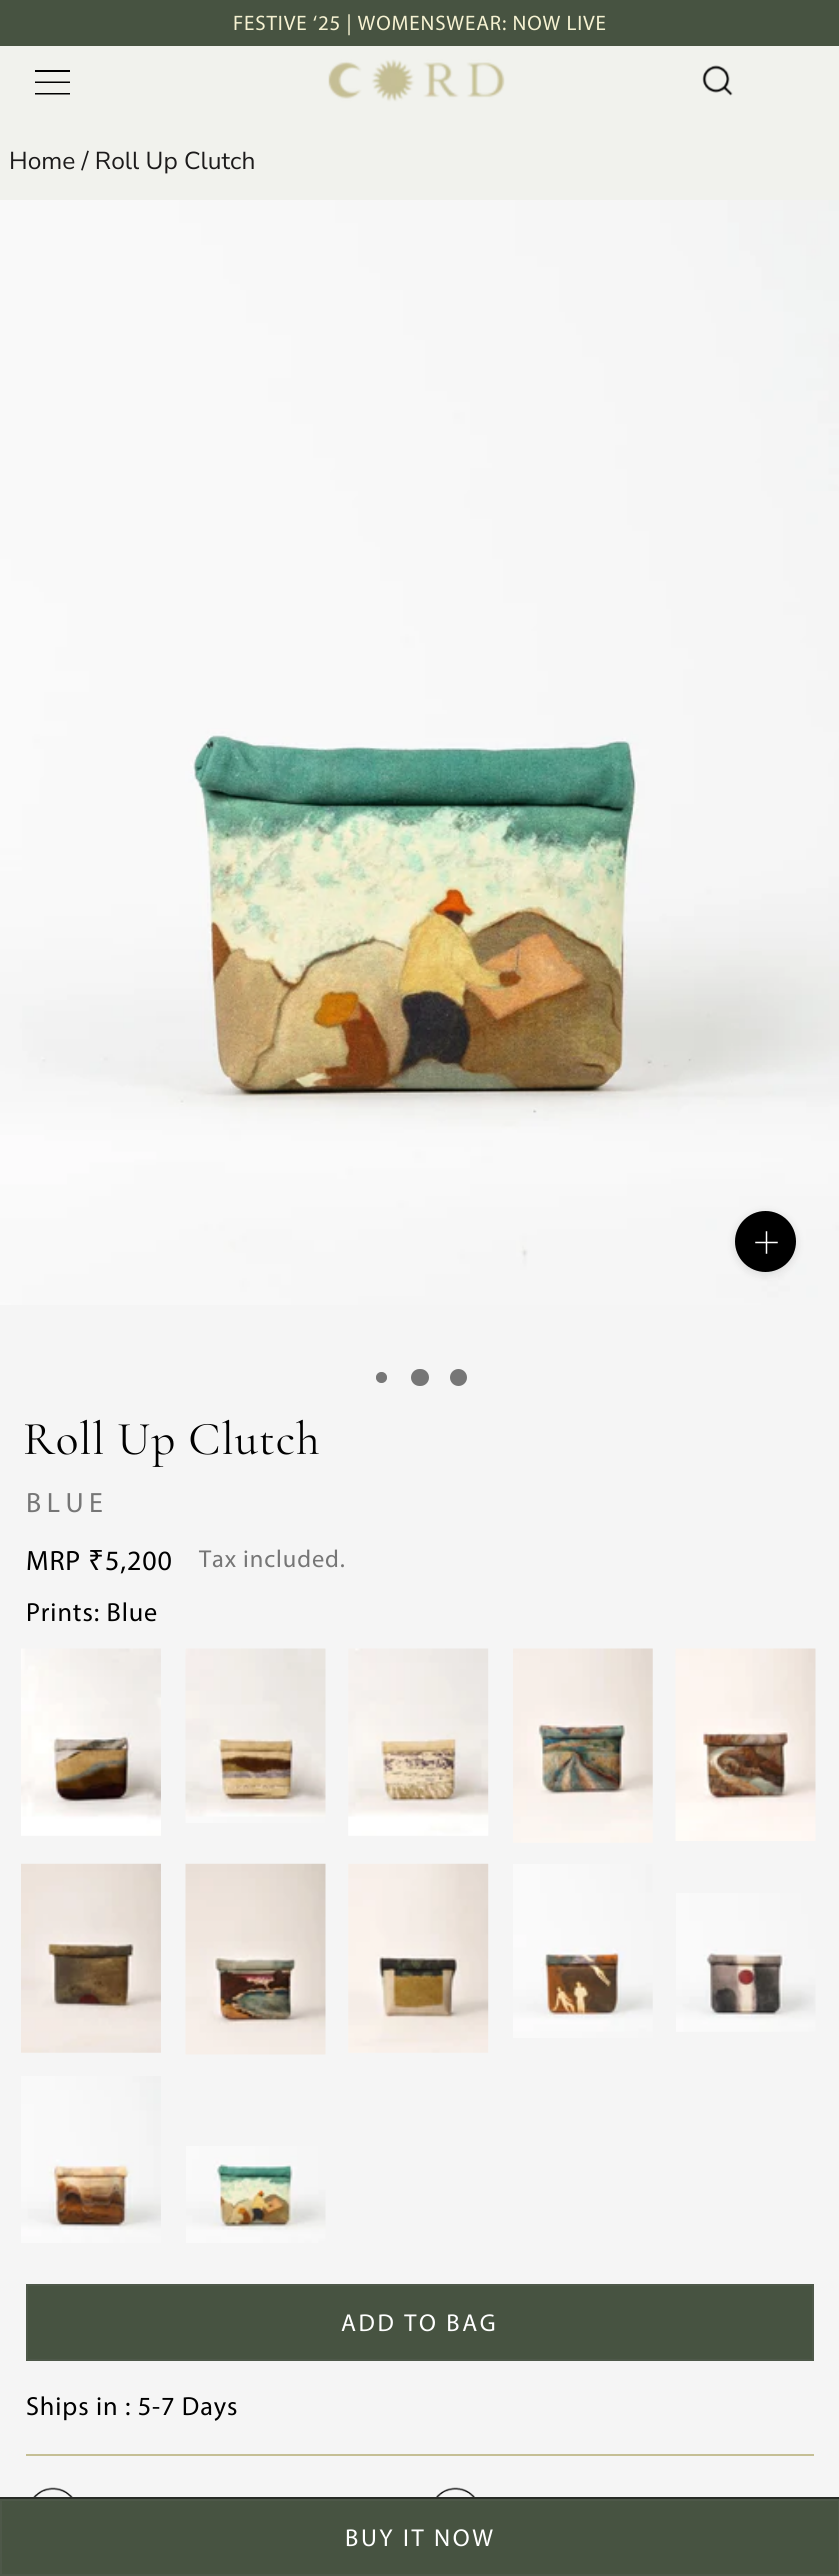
import math
import cairo

surface = cairo.ImageSurface(cairo.Format.RGB24, 839, 2576)
ctx = cairo.Context(surface)
options = cairo.FontOptions()
options.set_hint_metrics(cairo.HintMetrics.OFF)
options.set_hint_style(cairo.HintStyle.NONE)
ctx.set_font_options(options)
ctx.set_miter_limit(4)


def ink(r, g, b):
    ctx.set_source_rgb(r / 255, g / 255, b / 255)


def write(x, y, s, family, size, color, bold=False, italic=False):
    ctx.select_font_face(family, cairo.FontSlant.ITALIC if italic else cairo.FontSlant.NORMAL, cairo.FontWeight.BOLD if bold else cairo.FontWeight.NORMAL)
    ctx.set_font_size(size)
    ink(*color)
    ctx.move_to(x, y)
    ctx.show_text(s)


def write_spaced(x, y, s, letter, word):
    ctx.move_to(x, y)
    for ch in s:
        ctx.show_text(ch)
        ctx.rel_move_to(letter + word * (ch == ' '), 0)


def block(x, y, w, h, *color):
    ink(*color)
    ctx.rectangle(x, y, w, h)
    ctx.fill()


def round_path(x, y, w, h, r):
    ctx.new_sub_path()
    for i, (u, v) in enumerate([(x + w - r, y + h - r), (x + r, y + h - r), (x + r, y + r), (x + w - r, y + r)]):
        ctx.arc(u, v, r, i * math.pi / 2, (i + 1) * math.pi / 2)
    ctx.close_path()


def blur_box(x, y, w, h, r, blur, alpha):
    ctx.push_group_with_content(cairo.Content.ALPHA)
    ctx.set_operator(cairo.Operator.SOURCE)
    for i in range(15, -16, -2):
        e = blur * i / 6
        if min(w, h) + 2 * e > 0:
            ctx.set_source_rgba(0, 0, 0, alpha * math.erfc((i - 1) / 8.5) / 2)
            round_path(x - e, y - e, w + 2 * e, h + 2 * e, max(0, min(r + e + blur * .6, min(w, h) / 2 + e)))
            ctx.fill()
    ctx.mask(ctx.pop_group())


def paste(path, x, y, w, h):
    ctx.save()
    ctx.set_source_surface(cairo.ImageSurface.create_from_png(path), x, y)
    ctx.rectangle(x, y, w, h)
    ctx.fill()
    ctx.restore()


s1 = dict(family="Nunito Sans", size=24.5, color=(28, 27, 27))

ink(241, 242, 237)
ctx.paint()
block(0, 0, 839, 46, 71, 83, 65)
ctx.select_font_face("Myriad")
ctx.set_font_size(21)
ink(245, 241, 209)
write_spaced(233, 30, "FESTIVE ‘25 | WOMENSWEAR: NOW LIVE", 0.85, 0)
ink(0, 0, 0)
ctx.new_path()
ctx.move_to(35, 94.5)
ctx.line_to(35, 93)
ctx.line_to(70, 93)
ctx.line_to(70, 94.5)
ctx.close_path()
ctx.move_to(35, 81.5)
ctx.line_to(70, 81.5)
ctx.line_to(70, 83)
ctx.line_to(35, 83)
ctx.close_path()
ctx.move_to(35, 70)
ctx.line_to(70, 70)
ctx.line_to(70, 72)
ctx.line_to(35, 72)
ctx.close_path()
ctx.fill()
paste("pic1.png", 328, 59, 177, 43)
paste("pic2.png", 702, 65, 31, 31)
write(9, 169, "Home / Roll Up Clutch", **s1)
block(0, 1305, 839, 1192, 245, 245, 245)
paste("pic3.png", 0, 200, 839, 1105)
ink(54, 54, 54)
blur_box(735, 1213, 61, 61, 30.5, 4.5, 0.15)
ink(0, 0, 0)
ctx.arc(765.5, 1241.5, 30.5, 0, 2 * math.pi)
ctx.fill()
ctx.new_path()
ctx.move_to(766.5, 1232)
ctx.line_to(766.5, 1253)
ctx.move_to(756, 1242.5)
ctx.line_to(777, 1242.5)
ink(255, 255, 255)
ctx.set_line_width(1.5)
ctx.set_line_cap(cairo.LineCap.SQUARE)
ctx.stroke()
ink(118, 118, 118)
ctx.arc(381.5, 1377.5, 5, 0, 2 * math.pi)
ctx.fill_preserve()
ctx.set_line_width(1)
ctx.set_line_cap(cairo.LineCap.BUTT)
ctx.stroke()
round_path(412, 1370, 16, 15, 7.5)
ctx.fill_preserve()
ctx.set_line_width(2)
ctx.stroke()
ctx.arc(458.5, 1377.5, 7.5, 0, 2 * math.pi)
ctx.fill_preserve()
ctx.stroke()
ctx.select_font_face("Cormorant Garamond")
ctx.set_font_size(47.25)
ink(0, 0, 0)
write_spaced(23, 1454, "Roll Up Clutch", 0.9, 0)
ctx.select_font_face("Myriad")
ctx.set_font_size(28)
ink(118, 118, 118)
write_spaced(26, 1512, "BLUE", 5.5, 0)
ink(0, 0, 0)
write_spaced(26, 1570, "MRP", 0.9, 0)
ctx.select_font_face("Noto Sans")
write_spaced(88, 1570, "₹", 0.9, 0)
ctx.select_font_face("Myriad")
write_spaced(105, 1570, "5,200", 0.9, 0)
ctx.set_font_size(24.5)
ink(118, 118, 118)
write_spaced(199, 1567, "Tax included.", 0.9, 0)
ctx.set_font_size(26.25)
ink(0, 0, 0)
write_spaced(26, 1621, "Prints: Blue", 0.9, 0)
paste("pic4.png", 21, 1648, 140, 188)
paste("pic5.png", 185, 1648, 141, 175)
paste("pic6.png", 348, 1648, 141, 188)
paste("pic7.png", 513, 1648, 140, 195)
paste("pic8.png", 675, 1648, 141, 193)
paste("pic9.png", 21, 1863, 140, 190)
paste("pic10.png", 185, 1863, 141, 192)
paste("pic11.png", 348, 1863, 141, 190)
paste("pic12.png", 513, 1864, 140, 174)
paste("pic13.png", 676, 1893, 140, 139)
paste("pic14.png", 21, 2076, 140, 167)
paste("pic15.png", 186, 2146, 140, 97)
write_spaced(26, 2415, "Ships in : 5-7 Days", 0.9, 0)
ink(71, 83, 65)
ctx.rectangle(27, 2285, 786, 75)
ctx.fill_preserve()
ink(78, 88, 73)
ctx.stroke()
ctx.set_font_size(24.5)
ink(255, 255, 255)
write_spaced(341, 2331, "ADD TO BAG", 2.6, 0)
block(0, 2497, 839, 2, 40, 43, 38)
ink(71, 83, 65)
ctx.rectangle(1, 2500, 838, 75)
ctx.fill_preserve()
ink(78, 88, 73)
ctx.stroke()
ink(255, 255, 255)
write_spaced(345, 2546, "BUY IT NOW", 2.6, 0)
block(26, 2454, 788, 2, 197, 191, 149)
paste("pic16.png", 33, 2487, 40, 10)
paste("pic17.png", 436, 2487, 39, 10)
surface.write_to_png("screenshot.png")
